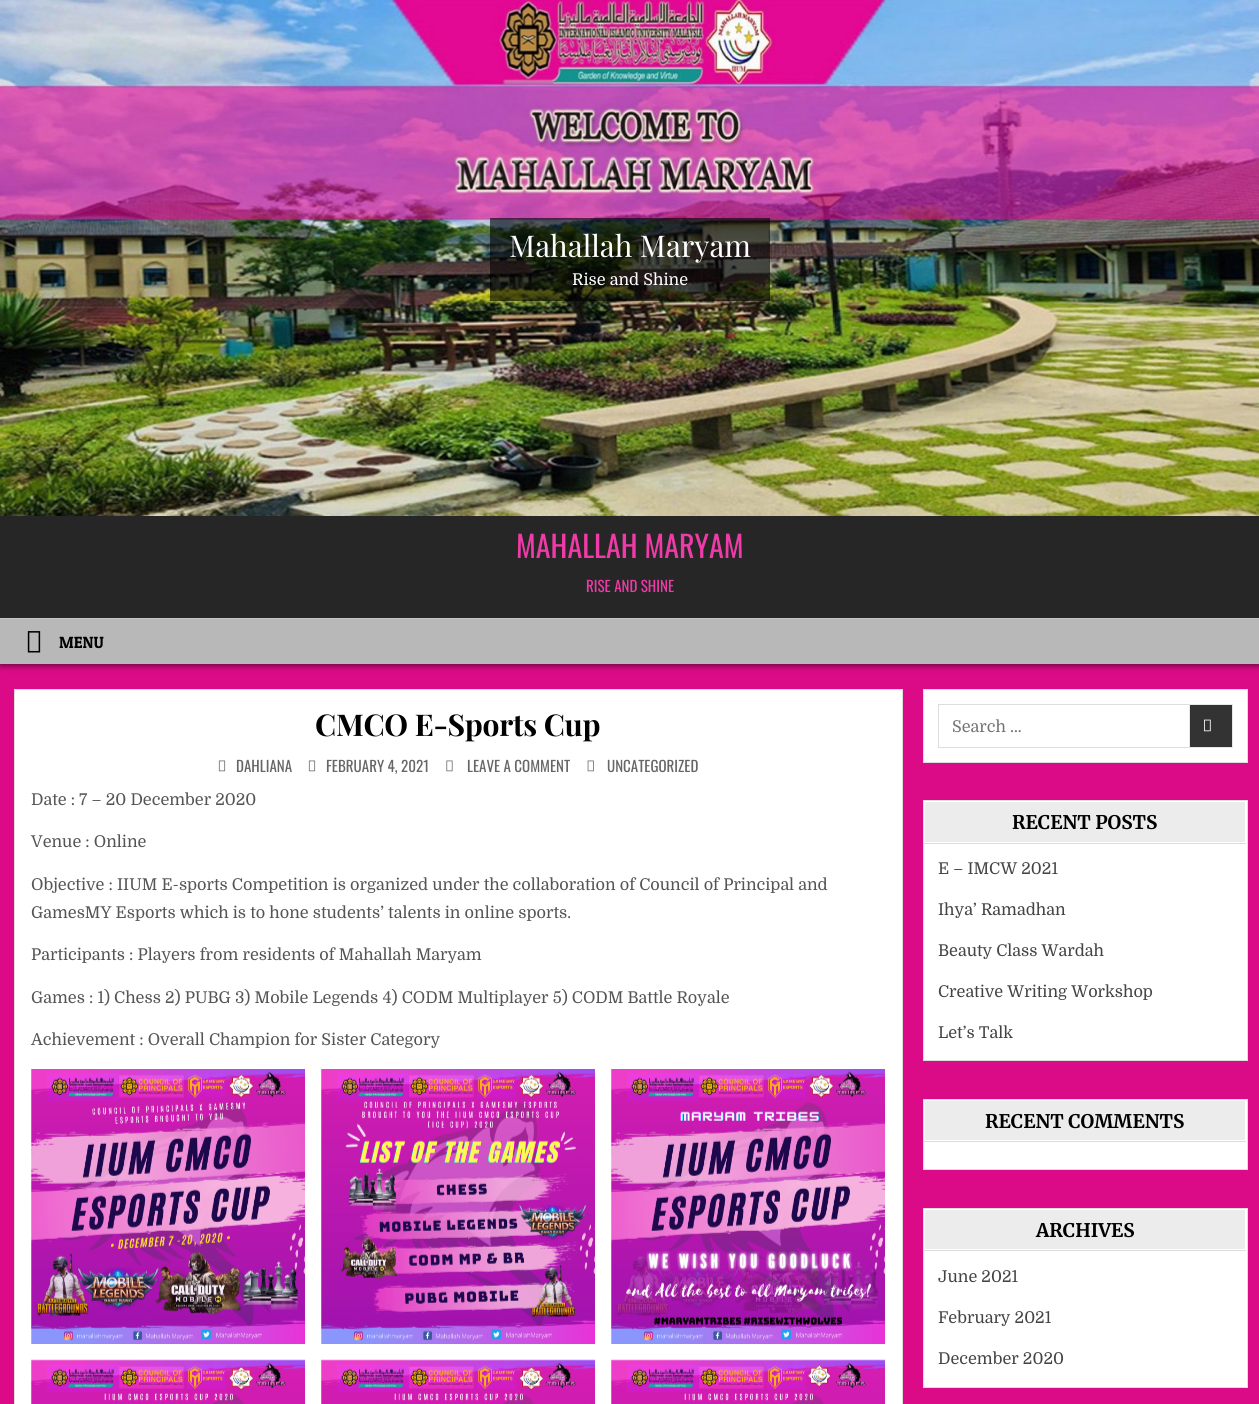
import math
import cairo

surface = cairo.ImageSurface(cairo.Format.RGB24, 1259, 1404)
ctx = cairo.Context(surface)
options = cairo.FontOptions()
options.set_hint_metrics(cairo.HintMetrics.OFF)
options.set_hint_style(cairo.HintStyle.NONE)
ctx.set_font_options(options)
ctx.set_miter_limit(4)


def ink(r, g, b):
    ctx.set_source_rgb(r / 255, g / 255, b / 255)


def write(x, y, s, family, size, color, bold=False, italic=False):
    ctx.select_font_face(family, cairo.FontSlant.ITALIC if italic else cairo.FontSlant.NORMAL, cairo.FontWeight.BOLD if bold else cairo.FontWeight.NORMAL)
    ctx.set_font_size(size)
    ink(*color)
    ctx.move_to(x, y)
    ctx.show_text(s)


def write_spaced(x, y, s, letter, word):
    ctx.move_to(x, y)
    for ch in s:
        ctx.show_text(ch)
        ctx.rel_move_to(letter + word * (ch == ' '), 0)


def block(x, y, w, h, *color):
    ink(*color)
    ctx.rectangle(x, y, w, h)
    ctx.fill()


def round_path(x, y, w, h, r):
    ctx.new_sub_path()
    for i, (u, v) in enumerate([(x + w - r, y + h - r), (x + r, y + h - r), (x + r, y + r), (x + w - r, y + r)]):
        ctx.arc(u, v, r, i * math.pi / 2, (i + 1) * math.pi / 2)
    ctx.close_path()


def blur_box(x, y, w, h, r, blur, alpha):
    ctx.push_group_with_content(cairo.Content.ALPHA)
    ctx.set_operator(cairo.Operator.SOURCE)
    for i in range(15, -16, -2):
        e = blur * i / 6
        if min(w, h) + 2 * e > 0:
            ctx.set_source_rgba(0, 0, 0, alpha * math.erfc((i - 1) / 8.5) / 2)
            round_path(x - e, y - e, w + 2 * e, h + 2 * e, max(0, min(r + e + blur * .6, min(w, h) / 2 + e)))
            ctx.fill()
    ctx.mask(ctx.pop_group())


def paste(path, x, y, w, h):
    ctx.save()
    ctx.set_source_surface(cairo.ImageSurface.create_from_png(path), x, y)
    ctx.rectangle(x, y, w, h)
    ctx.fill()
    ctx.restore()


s1 = dict(family="Playfair Display", size=30, color=(255, 255, 255))
s2 = dict(family="Domine", size=16.25, color=(255, 255, 255))
s3 = dict(family="Oswald", size=30, color=(239, 59, 167))
s4 = dict(family="Oswald", size=15, color=(239, 59, 167))
s5 = dict(family="Patua One", size=16.25, color=(0, 0, 0))
s6 = dict(family="Oswald", size=15, color=(102, 102, 102))
s7 = dict(family="Domine", size=16.25, color=(85, 85, 85))
s8 = dict(family="Domine", size=16.25, color=(117, 117, 117))
s9 = dict(family="Merriweather", size=18.75, color=(0, 0, 0), bold=True)
s10 = dict(family="Domine", size=16.25, color=(68, 68, 68))

ink(219, 10, 135)
ctx.paint()
paste("pic1.png", 0, 0, 1259, 516)
ctx.set_source_rgba(0, 0, 0, 0.6)
ctx.rectangle(490, 218, 280, 83)
ctx.fill()
write(509, 257, "Mahallah Maryam", **s1)
write(572, 285, "Rise and Shine", **s2)
ink(0, 0, 0)
blur_box(0, 620, 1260, 46, 0, 3, 0.5)
block(0, 516, 1259, 102, 38, 38, 38)
write(516, 558, "MAHALLAH MARYAM", **s3)
write(586, 592, "RISE AND SHINE", **s4)
block(0, 619, 1259, 45, 184, 184, 184)
block(0, 618, 1259, 1, 197, 197, 197)
paste("pic2.png", 27, 631, 14, 22)
write(59, 648, "MENU", **s5)
ink(255, 255, 255)
ctx.rectangle(14.5, 689.5, 888, 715)
ctx.fill_preserve()
ink(221, 221, 221)
ctx.set_line_width(1)
ctx.stroke()
ctx.select_font_face("Playfair Display", cairo.FontSlant.NORMAL, cairo.FontWeight.BOLD)
ctx.set_font_size(30)
ink(0, 0, 0)
write_spaced(315, 736, "CMCO E-Sports Cup", -0.25, 0)
paste("pic3.png", 218, 760, 8, 12)
write(236, 772, "DAHLIANA", **s6)
paste("pic3.png", 308, 760, 8, 12)
write(326, 772, "FEBRUARY 4, 2021", **s6)
paste("pic4.png", 446, 760, 7, 12)
write(467, 772, "LEAVE A COMMENT", **s6)
paste("pic5.png", 587, 760, 7, 12)
write(607, 772, "UNCATEGORIZED", **s6)
write(31, 805, "Date : 7 – 20 December 2020", **s7)
write(31, 847, "Venue : Online", **s7)
write(31, 890, "Objective : IIUM E-sports Competition is organized under the collaboration of Council of Principal and", **s7)
write(31, 918, "GamesMY Esports which is to hone students’ talents in online sports.", **s7)
write(31, 960, "Participants : Players from residents of Mahallah Maryam", **s7)
write(31, 1003, "Games : 1) Chess 2) PUBG 3) Mobile Legends 4) CODM Multiplayer 5) CODM Battle Royale", **s7)
write(31, 1045, "Achievement : Overall Champion for Sister Category", **s7)
paste("pic6.png", 31, 1069, 274, 275)
paste("pic7.png", 321, 1069, 274, 275)
paste("pic8.png", 611, 1069, 274, 275)
paste("pic9.png", 31, 1359, 274, 45)
paste("pic10.png", 321, 1359, 274, 45)
paste("pic11.png", 611, 1359, 274, 45)
ink(255, 255, 255)
ctx.rectangle(923.5, 689.5, 324, 73)
ctx.fill_preserve()
ink(221, 221, 221)
ctx.stroke()
ctx.rectangle(938.5, 704.5, 294, 43)
ctx.stroke()
write(952, 732, "Search …", **s8)
ink(51, 51, 51)
ctx.rectangle(1189.5, 704.5, 43, 43)
ctx.fill_preserve()
ink(230, 230, 230)
ctx.stroke()
paste("pic12.png", 1204, 719, 7, 13)
ink(255, 255, 255)
ctx.rectangle(923.5, 800.5, 324, 260)
ctx.fill_preserve()
ink(221, 221, 221)
ctx.stroke()
block(924, 843, 322, 1, 221, 221, 221)
block(925, 802, 320, 40, 236, 236, 236)
write(1012, 829, "RECENT POSTS", **s9)
write(938, 874, "E – IMCW 2021", **s10)
write(938, 915, "Ihya’ Ramadhan", **s10)
write(938, 956, "Beauty Class Wardah", **s10)
write(938, 997, "Creative Writing Workshop", **s10)
write(938, 1038, "Let’s Talk", **s10)
ink(255, 255, 255)
ctx.rectangle(923.5, 1099.5, 324, 70)
ctx.fill_preserve()
ink(221, 221, 221)
ctx.stroke()
block(924, 1141, 322, 1, 221, 221, 221)
block(925, 1101, 320, 39, 236, 236, 236)
write(985, 1128, "RECENT COMMENTS", **s9)
ink(255, 255, 255)
ctx.rectangle(923.5, 1208.5, 324, 179)
ctx.fill_preserve()
ink(221, 221, 221)
ctx.stroke()
block(924, 1250, 322, 1, 221, 221, 221)
block(925, 1210, 320, 39, 236, 236, 236)
write(1036, 1237, "ARCHIVES", **s9)
write(938, 1282, "June 2021", **s10)
write(938, 1323, "February 2021", **s10)
write(938, 1364, "December 2020", **s10)
surface.write_to_png("screenshot.png")
